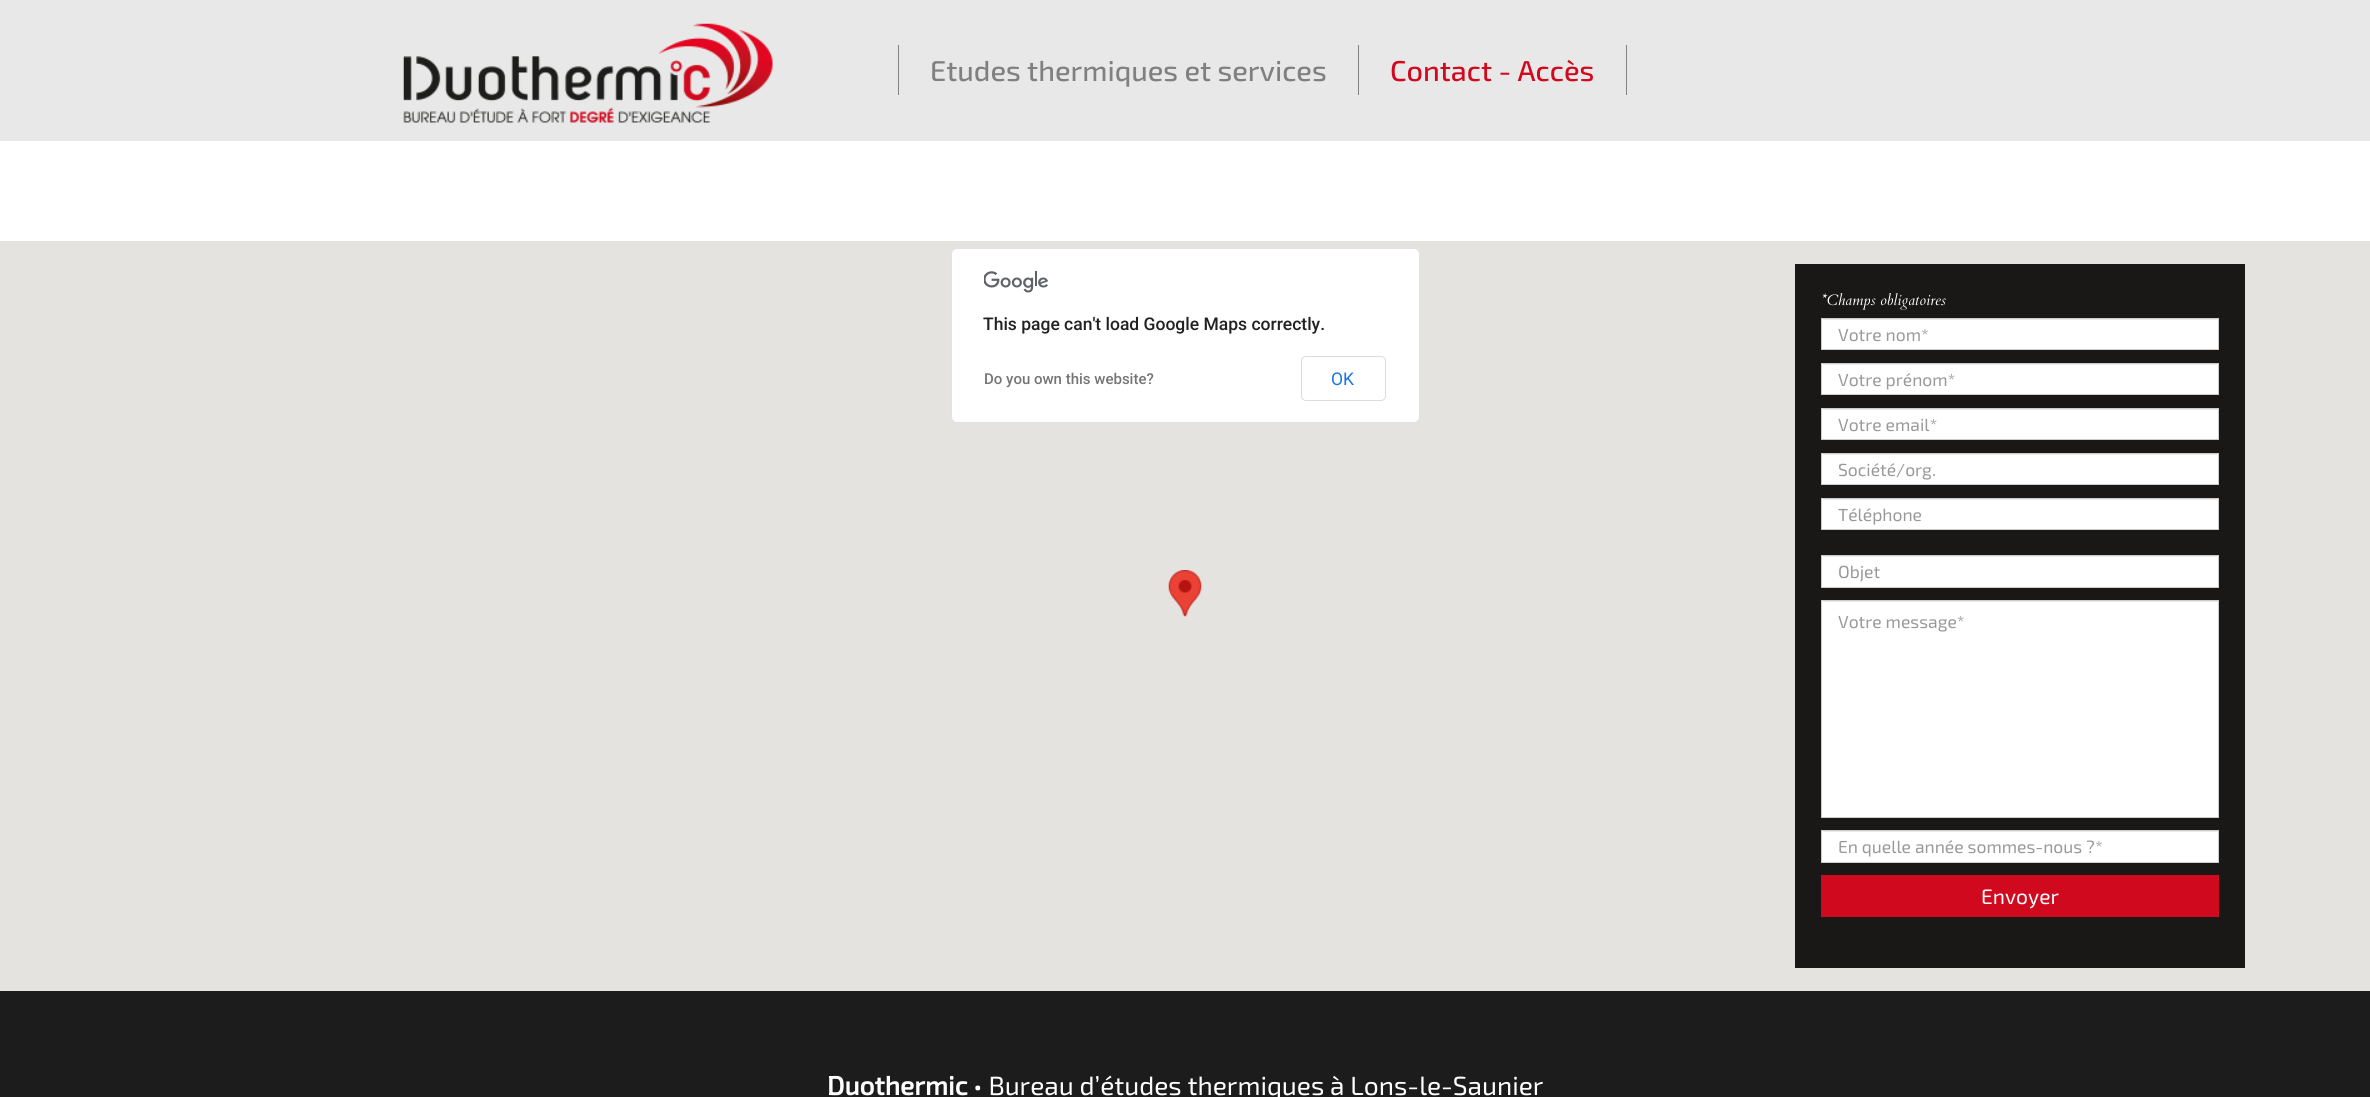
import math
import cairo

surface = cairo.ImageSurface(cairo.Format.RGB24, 2370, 1097)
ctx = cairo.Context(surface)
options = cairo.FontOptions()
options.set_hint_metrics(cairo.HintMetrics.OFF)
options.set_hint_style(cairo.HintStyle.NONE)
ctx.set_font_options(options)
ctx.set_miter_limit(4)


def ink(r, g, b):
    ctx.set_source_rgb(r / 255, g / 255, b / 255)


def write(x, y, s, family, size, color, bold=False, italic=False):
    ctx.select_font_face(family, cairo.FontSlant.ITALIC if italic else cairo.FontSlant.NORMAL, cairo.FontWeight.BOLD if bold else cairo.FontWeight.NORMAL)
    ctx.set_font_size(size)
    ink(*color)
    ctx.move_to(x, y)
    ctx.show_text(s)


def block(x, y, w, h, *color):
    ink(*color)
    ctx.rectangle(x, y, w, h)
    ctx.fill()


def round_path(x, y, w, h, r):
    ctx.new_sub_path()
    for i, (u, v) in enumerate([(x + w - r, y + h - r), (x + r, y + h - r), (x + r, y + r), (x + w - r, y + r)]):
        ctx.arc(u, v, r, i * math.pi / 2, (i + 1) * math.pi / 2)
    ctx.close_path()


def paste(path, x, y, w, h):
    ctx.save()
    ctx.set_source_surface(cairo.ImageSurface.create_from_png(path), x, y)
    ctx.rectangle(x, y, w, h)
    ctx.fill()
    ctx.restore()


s1 = dict(family="Exo 2 Medium", size=28.75, color=(128, 128, 128))
s2 = dict(family="Exo 2 Medium", size=28.75, color=(209, 9, 30))
s3 = dict(family="Roboto Medium", size=17.5, color=(33, 33, 33))
s4 = dict(family="Roboto Medium", size=15, color=(117, 117, 117))
s5 = dict(family="Roboto", size=17.5, color=(26, 115, 232))
s6 = dict(family="Cardo", size=15, color=(255, 255, 255), italic=True)
s7 = dict(family="Exo 2", size=17.5, color=(153, 153, 153))
s8 = dict(family="Exo 2", size=21, color=(255, 255, 255))
s9 = dict(family="Exo 2", size=26.25, color=(255, 255, 255), bold=True)
s10 = dict(family="Exo 2", size=26.25, color=(255, 255, 255))

ink(255, 255, 255)
ctx.paint()
block(0, 0, 2370, 141, 232, 232, 232)
paste("pic1.png", 403, 23, 370, 100)
block(1358, 45, 1, 50, 129, 129, 129)
block(898, 45, 1, 50, 129, 129, 129)
write(930, 81, "Etudes thermiques et services", **s1)
block(1626, 45, 1, 50, 129, 129, 129)
write(1390, 81, "Contact - Accès", **s2)
block(0, 241, 2370, 750, 229, 227, 223)
paste("pic2.png", 1168, 570, 34, 47)
ink(255, 255, 255)
round_path(951, 248, 469, 175, 6)
ctx.fill()
round_path(951.5, 248.5, 468, 174, 5.5)
ctx.set_source_rgba(0, 0, 0, 0.12)
ctx.set_line_width(1)
ctx.stroke()
paste("pic3.png", 984, 271, 64, 22)
write(983, 330, "This page can't load Google Maps correctly.", **s3)
write(984, 384, "Do you own this website?", **s4)
round_path(1301.5, 356.5, 84, 44, 4.5)
ink(218, 220, 224)
ctx.stroke()
write(1331, 385, "OK", **s5)
block(1795, 264, 450, 704, 25, 24, 22)
write(1821, 305, "*Champs obligatoires", **s6)
block(1822, 319, 396, 30, 255, 255, 255)
block(1823, 319, 395, 1, 236, 236, 236)
ctx.rectangle(1821.5, 318.5, 397, 31)
ink(204, 204, 204)
ctx.stroke()
write(1838, 341, "Votre nom*", **s7)
block(1822, 364, 396, 30, 255, 255, 255)
block(1823, 364, 395, 1, 236, 236, 236)
ctx.rectangle(1821.5, 363.5, 397, 31)
ink(204, 204, 204)
ctx.stroke()
write(1838, 386, "Votre prénom*", **s7)
block(1822, 409, 396, 30, 255, 255, 255)
block(1823, 409, 395, 1, 236, 236, 236)
ctx.rectangle(1821.5, 408.5, 397, 31)
ink(204, 204, 204)
ctx.stroke()
write(1838, 431, "Votre email*", **s7)
block(1822, 454, 396, 30, 255, 255, 255)
block(1823, 454, 395, 1, 236, 236, 236)
ctx.rectangle(1821.5, 453.5, 397, 31)
ink(204, 204, 204)
ctx.stroke()
write(1838, 476, "Société/org.", **s7)
block(1822, 499, 396, 30, 255, 255, 255)
block(1823, 499, 395, 1, 236, 236, 236)
ctx.rectangle(1821.5, 498.5, 397, 31)
ink(204, 204, 204)
ctx.stroke()
write(1838, 521, "Téléphone", **s7)
block(1822, 556, 396, 31, 255, 255, 255)
block(1823, 556, 395, 1, 236, 236, 236)
ctx.rectangle(1821.5, 555.5, 397, 32)
ink(204, 204, 204)
ctx.stroke()
write(1838, 578, "Objet", **s7)
block(1822, 601, 396, 216, 255, 255, 255)
block(1823, 601, 395, 1, 236, 236, 236)
ctx.rectangle(1821.5, 600.5, 397, 217)
ink(204, 204, 204)
ctx.stroke()
write(1838, 628, "Votre message*", **s7)
block(1822, 831, 396, 31, 255, 255, 255)
block(1823, 831, 395, 1, 236, 236, 236)
ctx.rectangle(1821.5, 830.5, 397, 32)
ink(204, 204, 204)
ctx.stroke()
write(1838, 853, "En quelle année sommes-nous ?*", **s7)
block(1821, 875, 398, 42, 209, 9, 30)
write(1981, 904, "Envoyer", **s8)
block(0, 991, 2370, 106, 28, 28, 28)
write(827, 1095, "Duothermic", **s9)
write(973, 1095, "• Bureau d’études thermiques à Lons-le-Saunier", **s10)
surface.write_to_png("screenshot.png")
